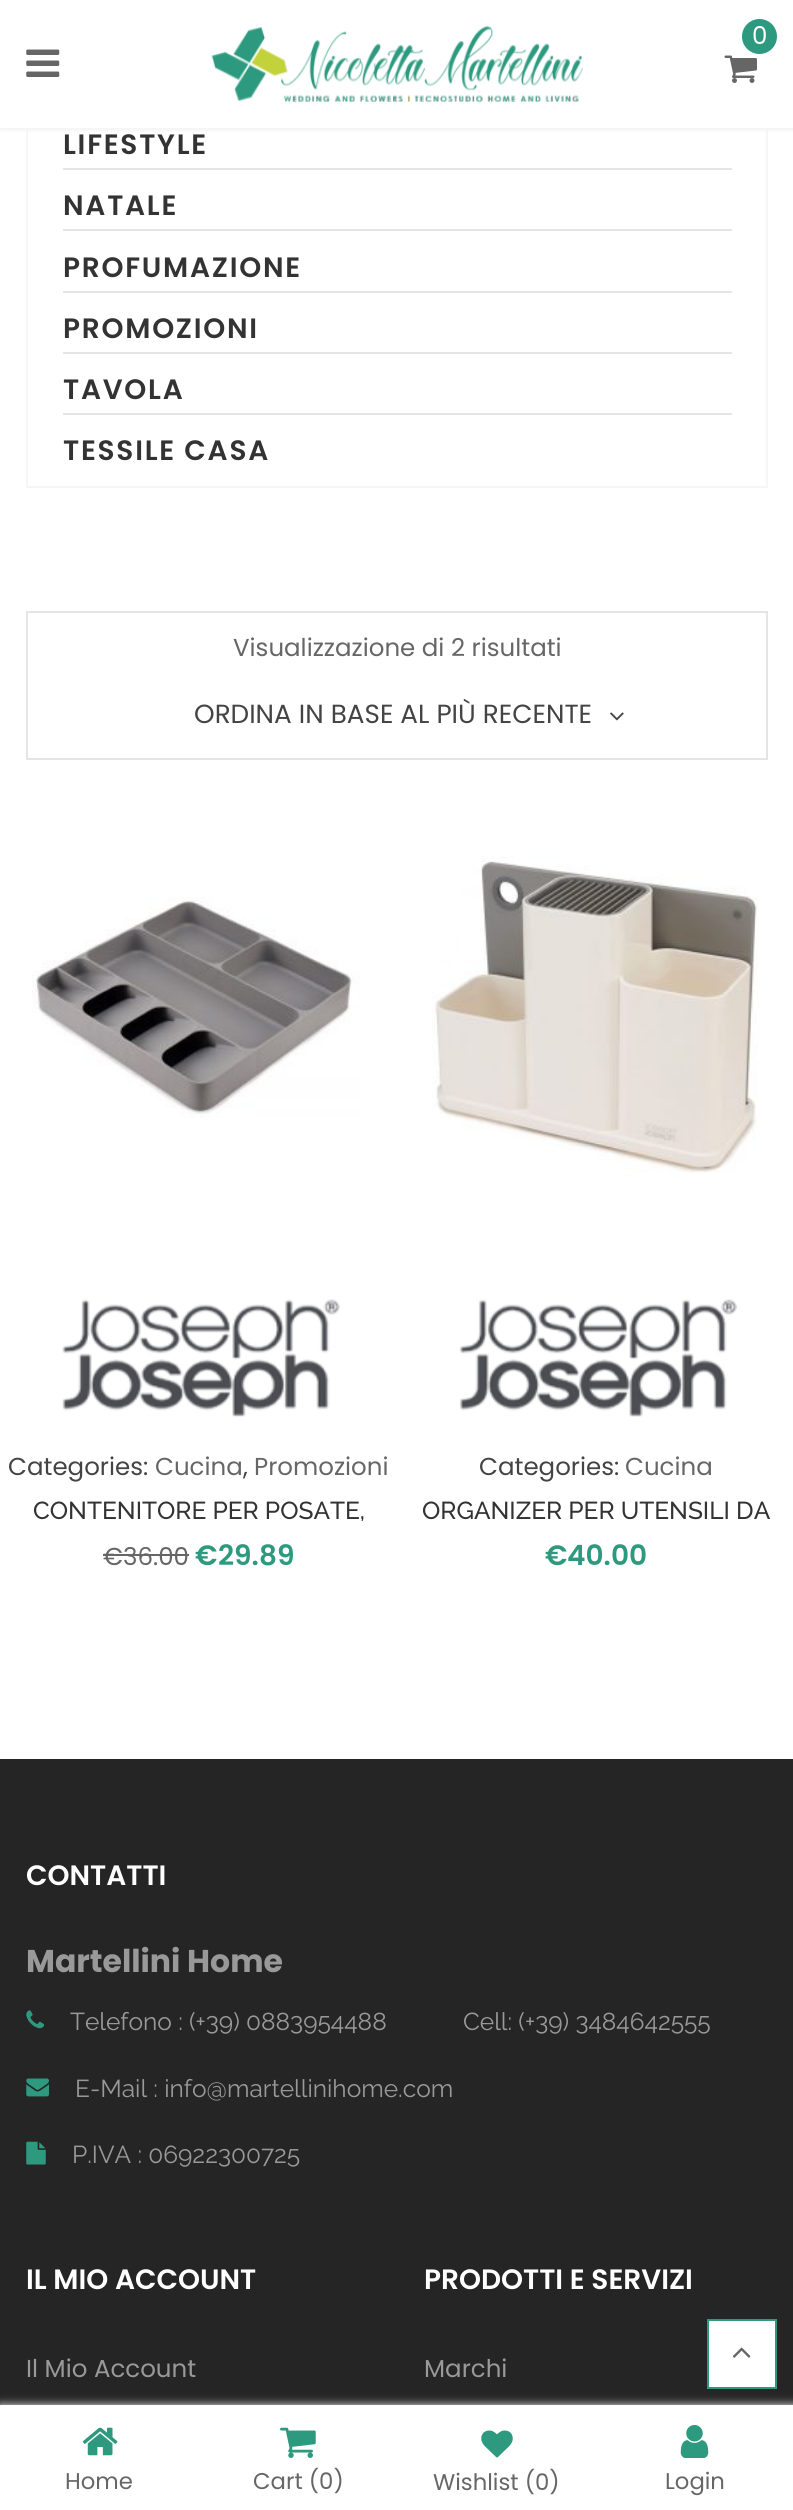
import math
import cairo

surface = cairo.ImageSurface(cairo.Format.RGB24, 793, 2510)
ctx = cairo.Context(surface)
options = cairo.FontOptions()
options.set_hint_metrics(cairo.HintMetrics.OFF)
options.set_hint_style(cairo.HintStyle.NONE)
ctx.set_font_options(options)
ctx.set_miter_limit(4)


def ink(r, g, b):
    ctx.set_source_rgb(r / 255, g / 255, b / 255)


def write(x, y, s, family, size, color, bold=False, italic=False):
    ctx.select_font_face(family, cairo.FontSlant.ITALIC if italic else cairo.FontSlant.NORMAL, cairo.FontWeight.BOLD if bold else cairo.FontWeight.NORMAL)
    ctx.set_font_size(size)
    ink(*color)
    ctx.move_to(x, y)
    ctx.show_text(s)


def write_spaced(x, y, s, letter, word):
    ctx.move_to(x, y)
    for ch in s:
        ctx.show_text(ch)
        ctx.rel_move_to(letter + word * (ch == ' '), 0)


def block(x, y, w, h, *color):
    ink(*color)
    ctx.rectangle(x, y, w, h)
    ctx.fill()


def round_path(x, y, w, h, r):
    ctx.new_sub_path()
    for i, (u, v) in enumerate([(x + w - r, y + h - r), (x + r, y + h - r), (x + r, y + r), (x + w - r, y + r)]):
        ctx.arc(u, v, r, i * math.pi / 2, (i + 1) * math.pi / 2)
    ctx.close_path()


def blur_box(x, y, w, h, r, blur, alpha):
    ctx.push_group_with_content(cairo.Content.ALPHA)
    ctx.set_operator(cairo.Operator.SOURCE)
    for i in range(15, -16, -2):
        e = blur * i / 6
        if min(w, h) + 2 * e > 0:
            ctx.set_source_rgba(0, 0, 0, alpha * math.erfc((i - 1) / 8.5) / 2)
            round_path(x - e, y - e, w + 2 * e, h + 2 * e, max(0, min(r + e + blur * .6, min(w, h) / 2 + e)))
            ctx.fill()
    ctx.mask(ctx.pop_group())


def paste(path, x, y, w, h):
    ctx.save()
    ctx.set_source_surface(cairo.ImageSurface.create_from_png(path), x, y)
    ctx.rectangle(x, y, w, h)
    ctx.fill()
    ctx.restore()


s1 = dict(family="Poppins", size=24.5, color=(255, 255, 255))
s2 = dict(family="Poppins", size=24.5, color=(102, 102, 102))
s3 = dict(family="Poppins", size=26.25, color=(68, 68, 68))
s4 = dict(family="Poppins", size=24.5, color=(68, 68, 68))
s5 = dict(family="Raleway Medium", size=24.5, color=(51, 51, 51))
s6 = dict(family="Poppins SemiBold", size=28, color=(45, 154, 127))
s7 = dict(family="Poppins SemiBold", size=28, color=(255, 255, 255))
s8 = dict(family="Poppins", size=31.5, color=(153, 153, 153), bold=True)
s9 = dict(family="Raleway", size=24.5, color=(153, 153, 153))
s10 = dict(family="Poppins", size=24.5, color=(153, 153, 153))
s11 = dict(family="Poppins", size=22.75, color=(102, 102, 102))

ink(255, 255, 255)
ctx.paint()
ctx.rectangle(27, -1, 740, 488)
ink(246, 246, 246)
ctx.stroke()
ink(245, 245, 245)
blur_box(0, 4, 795, 127, 0, 1, 1)
block(0, 0, 793, 128, 255, 255, 255)
paste("pic1.png", 211, 26, 372, 76)
ink(45, 154, 127)
ctx.arc(759.5, 36.5, 17.5, 0, 2 * math.pi)
ctx.fill()
write(752, 44, "0", **s1)
paste("pic2.png", 724, 55, 33, 28)
paste("pic3.png", 26, 49, 34, 28)
ctx.select_font_face("Poppins SemiBold")
ctx.set_font_size(28)
ink(51, 51, 51)
write_spaced(63, 154, "LIFESTYLE", 1.75, 0)
block(63, 168, 669, 2, 229, 229, 229)
ink(51, 51, 51)
write_spaced(63, 215, "NATALE", 1.75, 0)
block(63, 229, 669, 2, 229, 229, 229)
ink(51, 51, 51)
write_spaced(63, 277, "PROFUMAZIONE", 1.75, 0)
block(63, 291, 669, 2, 229, 229, 229)
ink(51, 51, 51)
write_spaced(63, 338, "PROMOZIONI", 1.75, 0)
block(63, 352, 669, 2, 229, 229, 229)
ink(51, 51, 51)
write_spaced(63, 399, "TAVOLA", 1.75, 0)
block(63, 413, 669, 2, 229, 229, 229)
ink(51, 51, 51)
write_spaced(63, 460, "TESSILE CASA", 1.75, 0)
ctx.rectangle(27, 612, 740, 147)
ink(229, 229, 229)
ctx.stroke()
write(233, 656, "Visualizzazione di 2 risultati", **s2)
write(194, 723, "ORDINA IN BASE AL PIÙ RECENTE", **s3)
paste("pic4.png", 610, 712, 14, 9)
paste("pic5.png", 32, 897, 328, 221)
paste("pic6.png", 62, 1299, 278, 118)
write(8, 1475, "Categories:", **s4)
write(155, 1475, "Cucina", **s2)
write(243, 1475, ",", **s4)
write(254, 1475, "Promozioni", **s2)
write(33, 1519, "CONTENITORE PER POSATE,", **s5)
write(103, 1565, "€", **s2)
write(123, 1565, "36.00", **s2)
block(123, 1554, 66, 2, 102, 102, 102)
block(103, 1554, 20, 2, 102, 102, 102)
write(195, 1565, "€", **s6)
write(218, 1565, "29.89", **s6)
paste("pic7.png", 432, 856, 326, 317)
paste("pic8.png", 459, 1299, 279, 118)
write(479, 1475, "Categories:", **s4)
write(625, 1475, "Cucina", **s2)
write(422, 1519, "ORGANIZER PER UTENSILI DA", **s5)
write(545, 1565, "€", **s6)
write(567, 1565, "40.00", **s6)
block(0, 1759, 793, 646, 37, 37, 37)
write(26, 1885, "CONTATTI", **s7)
write(26, 1972, "Martellini Home", **s8)
paste("pic9.png", 26, 2010, 19, 19)
write(70, 2030, "Telefono : (+39) 0883954488", **s9)
write(463, 2030, "Cell: (+39) 3484642555", **s9)
paste("pic10.png", 26, 2078, 23, 19)
write(75, 2097, "E-Mail : info@martellinihome.com", **s9)
paste("pic11.png", 26, 2141, 20, 24)
write(72, 2163, "P.IVA : 06922300725", **s9)
write(26, 2289, "IL MIO ACCOUNT", **s7)
write(26, 2377, "Il Mio Account", **s10)
write(424, 2289, "PRODOTTI E SERVIZI", **s7)
write(424, 2377, "Marchi", **s10)
ink(255, 255, 255)
ctx.rectangle(708, 2320, 68, 68)
ctx.fill_preserve()
ink(45, 154, 127)
ctx.stroke()
paste("pic12.png", 732, 2347, 19, 11)
ink(241, 241, 241)
blur_box(0, 2405, 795, 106, 0, 4.5, 1)
block(0, 2405, 793, 105, 255, 255, 255)
paste("pic13.png", 82, 2427, 36, 29)
write(65, 2489, "Home", **s11)
paste("pic14.png", 280, 2427, 36, 31)
write(253, 2489, "Cart (0)", **s11)
paste("pic15.png", 481, 2430, 32, 28)
write(433, 2490, "Wishlist (0)", **s11)
paste("pic16.png", 680, 2425, 29, 33)
write(665, 2489, "Login", **s11)
surface.write_to_png("screenshot.png")
